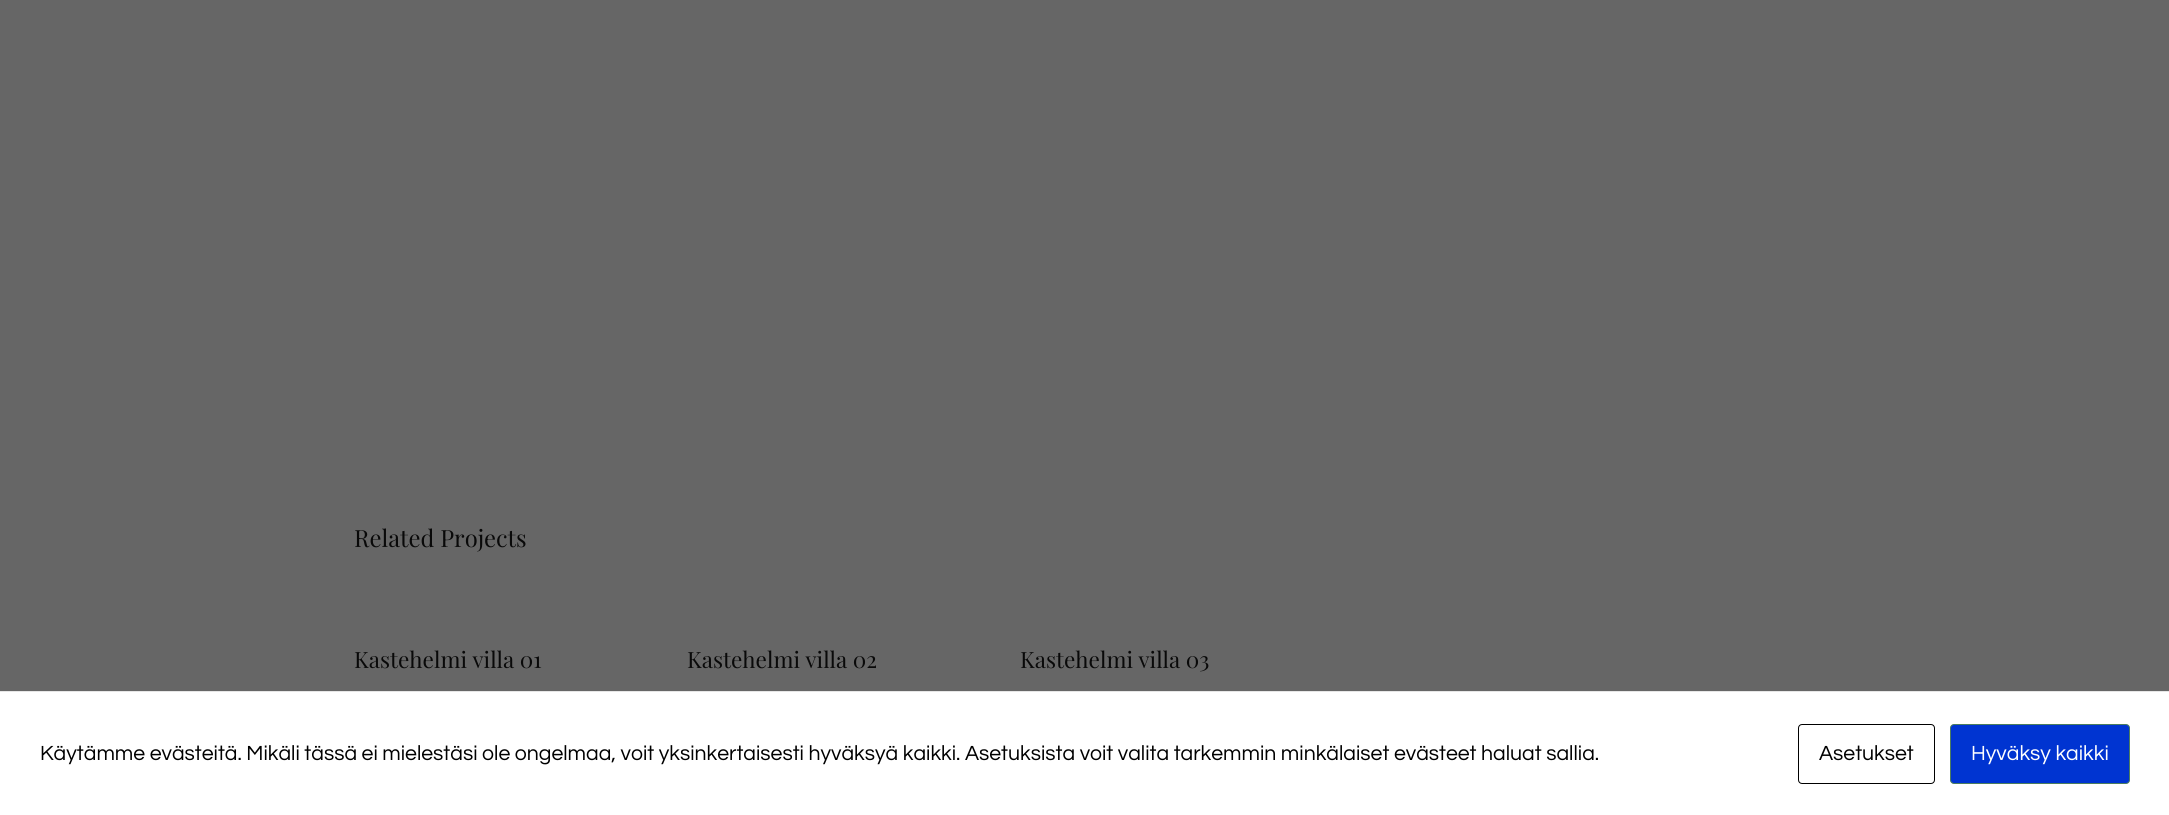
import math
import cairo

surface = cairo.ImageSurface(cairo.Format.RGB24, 2169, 815)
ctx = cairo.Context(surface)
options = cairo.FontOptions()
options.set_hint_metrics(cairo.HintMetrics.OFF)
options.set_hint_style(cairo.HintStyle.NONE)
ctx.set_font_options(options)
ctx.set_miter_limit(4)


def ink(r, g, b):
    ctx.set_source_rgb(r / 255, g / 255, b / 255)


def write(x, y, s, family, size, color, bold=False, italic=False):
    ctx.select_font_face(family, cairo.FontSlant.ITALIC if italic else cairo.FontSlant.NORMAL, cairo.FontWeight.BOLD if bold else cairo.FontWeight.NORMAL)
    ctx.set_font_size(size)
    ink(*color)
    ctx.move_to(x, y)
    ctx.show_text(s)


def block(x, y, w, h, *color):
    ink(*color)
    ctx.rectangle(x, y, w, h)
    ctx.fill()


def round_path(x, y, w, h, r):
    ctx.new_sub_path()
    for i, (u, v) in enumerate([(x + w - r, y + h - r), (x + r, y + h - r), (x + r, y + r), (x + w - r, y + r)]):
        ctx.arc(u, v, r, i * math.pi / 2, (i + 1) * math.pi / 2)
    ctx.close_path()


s1 = dict(family="Playfair Display", size=23.75, color=(9, 9, 9))
s2 = dict(family="Playfair Display", size=22.5, color=(9, 9, 9))
s3 = dict(family="Questrial", size=21.25, color=(0, 0, 0))
s4 = dict(family="Questrial", size=21.25, color=(255, 255, 255))

ink(102, 102, 102)
ctx.paint()
write(354, 547, "Related Projects", **s1)
write(354, 668, "Kastehelmi villa 01", **s2)
write(687, 668, "Kastehelmi villa 02", **s2)
write(1020, 668, "Kastehelmi villa 03", **s2)
block(0, 692, 2169, 123, 255, 255, 255)
block(0, 691, 2169, 1, 230, 230, 230)
write(40, 760, "Käytämme evästeitä. Mikäli tässä ei mielestäsi ole ongelmaa, voit yksinkertaisesti hyväksyä kaikki. Asetuksista voit valita tarkemmin minkälaiset evästeet haluat sallia.", **s3)
round_path(1798.5, 724.5, 136, 59, 3.5)
ctx.set_line_width(1)
ctx.stroke()
write(1819, 760, "Asetukset", **s3)
ink(0, 52, 209)
round_path(1950.5, 724.5, 179, 59, 3.5)
ctx.fill_preserve()
ink(75, 125, 94)
ctx.stroke()
write(1971, 760, "Hyväksy kaikki", **s4)
surface.write_to_png("screenshot.png")
